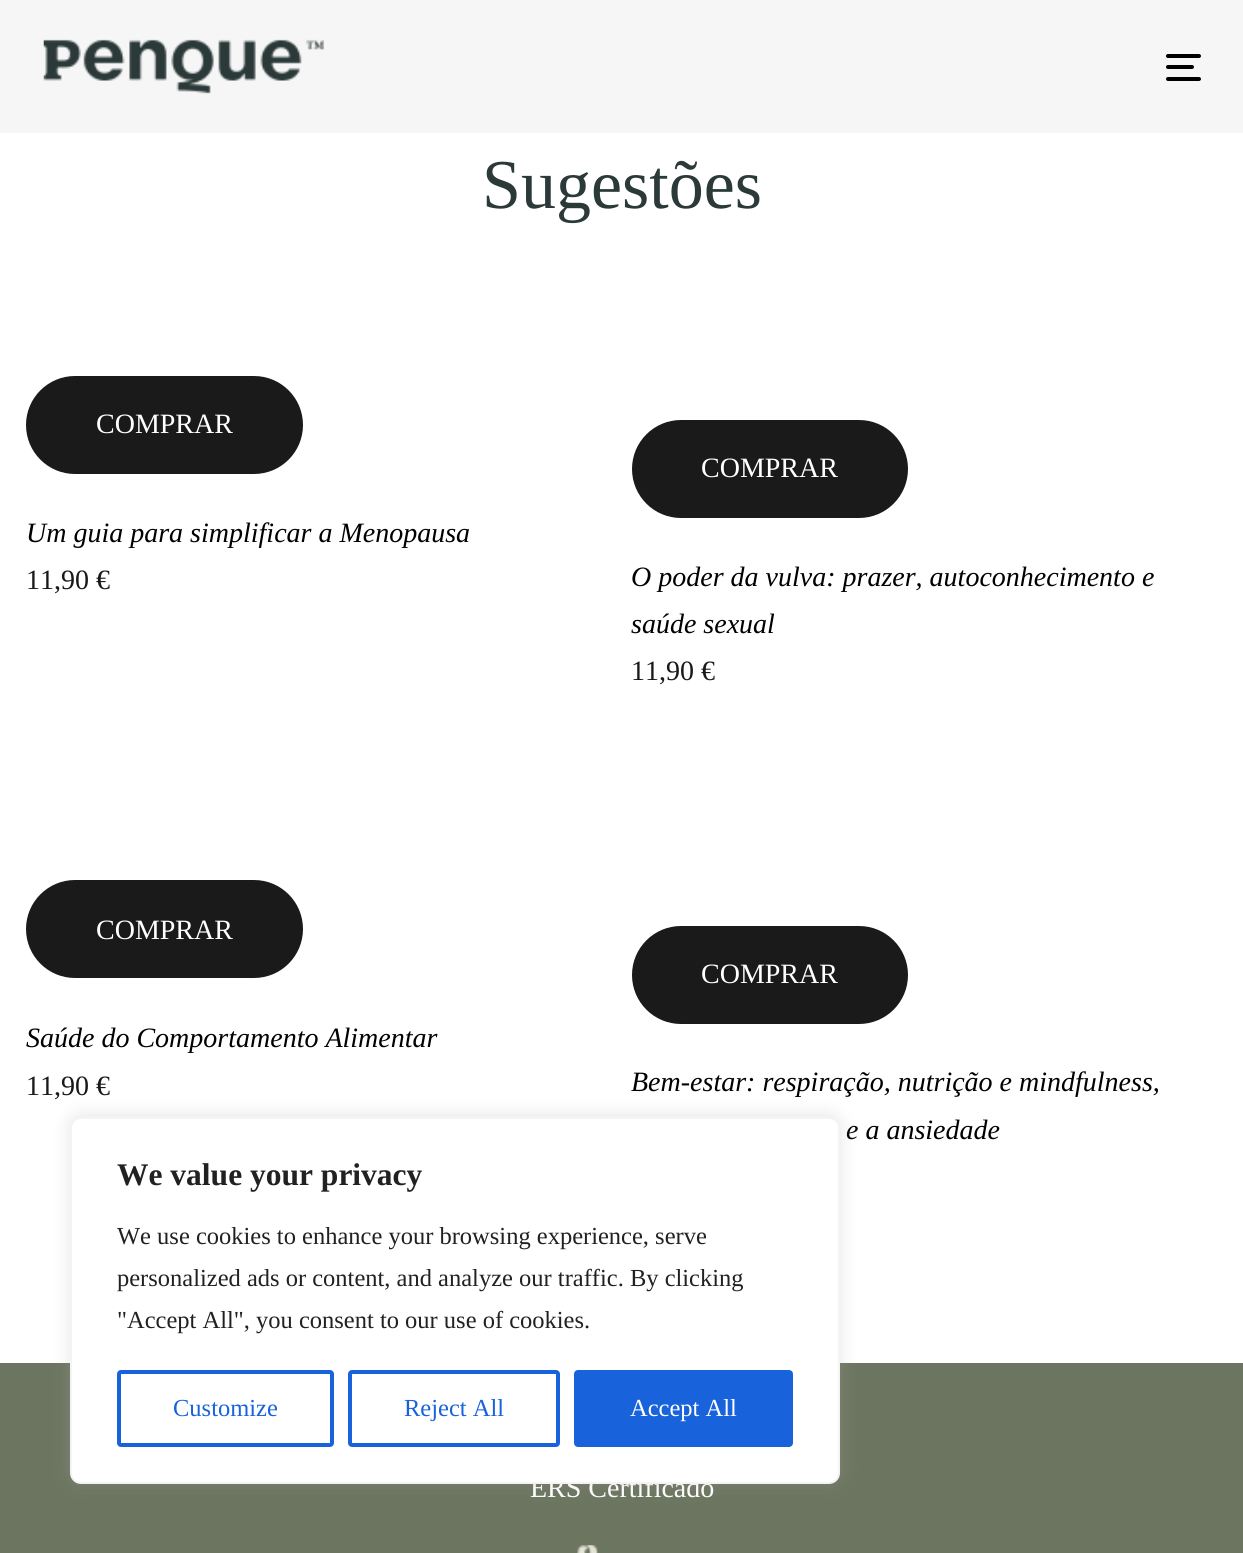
import math
import cairo

surface = cairo.ImageSurface(cairo.Format.RGB24, 1243, 1553)
ctx = cairo.Context(surface)
options = cairo.FontOptions()
options.set_hint_metrics(cairo.HintMetrics.OFF)
options.set_hint_style(cairo.HintStyle.NONE)
ctx.set_font_options(options)
ctx.set_miter_limit(4)


def ink(r, g, b):
    ctx.set_source_rgb(r / 255, g / 255, b / 255)


def write(x, y, s, family, size, color, bold=False, italic=False):
    ctx.select_font_face(family, cairo.FontSlant.ITALIC if italic else cairo.FontSlant.NORMAL, cairo.FontWeight.BOLD if bold else cairo.FontWeight.NORMAL)
    ctx.set_font_size(size)
    ink(*color)
    ctx.move_to(x, y)
    ctx.show_text(s)


def block(x, y, w, h, *color):
    ink(*color)
    ctx.rectangle(x, y, w, h)
    ctx.fill()


def round_path(x, y, w, h, r):
    ctx.new_sub_path()
    for i, (u, v) in enumerate([(x + w - r, y + h - r), (x + r, y + h - r), (x + r, y + r), (x + w - r, y + r)]):
        ctx.arc(u, v, r, i * math.pi / 2, (i + 1) * math.pi / 2)
    ctx.close_path()


def blur_box(x, y, w, h, r, blur, alpha):
    ctx.push_group_with_content(cairo.Content.ALPHA)
    ctx.set_operator(cairo.Operator.SOURCE)
    for i in range(15, -16, -2):
        e = blur * i / 6
        if min(w, h) + 2 * e > 0:
            ctx.set_source_rgba(0, 0, 0, alpha * math.erfc((i - 1) / 8.5) / 2)
            round_path(x - e, y - e, w + 2 * e, h + 2 * e, max(0, min(r + e + blur * .6, min(w, h) / 2 + e)))
            ctx.fill()
    ctx.mask(ctx.pop_group())


def paste(path, x, y, w, h):
    ctx.save()
    ctx.set_source_surface(cairo.ImageSurface.create_from_png(path), x, y)
    ctx.rectangle(x, y, w, h)
    ctx.fill()
    ctx.restore()


s1 = dict(family="Liberation Serif", size=70, color=(43, 57, 57))
s2 = dict(family="Liberation Serif", size=28, color=(255, 255, 255))
s3 = dict(family="Liberation Serif", size=28, color=(0, 0, 0), italic=True)
s4 = dict(family="Liberation Serif", size=28, color=(25, 25, 25))
s5 = dict(family="Liberation Serif", size=31.5, color=(33, 33, 33), bold=True)
s6 = dict(family="Liberation Serif", size=24.5, color=(33, 33, 33))
s7 = dict(family="Liberation Serif", size=24.5, color=(24, 99, 220))
s8 = dict(family="Liberation Serif", size=24.5, color=(255, 255, 255))

ink(255, 255, 255)
ctx.paint()
block(0, 0, 1243, 133, 246, 246, 246)
paste("pic1.png", 43, 39, 281, 55)
ink(0, 0, 0)
round_path(1166, 54, 35, 4, 2)
ctx.fill()
round_path(1166, 65, 28, 4, 2)
ctx.fill()
round_path(1166, 77, 35, 4, 2)
ctx.fill()
write(482, 208, "Sugestões", **s1)
ink(26, 26, 26)
round_path(26, 376, 277, 98, 49)
ctx.fill()
write(96, 433, "COMPRAR", **s2)
write(26, 542, "Um guia para simplificar a Menopausa", **s3)
write(26, 589, "11,90 €", **s4)
ink(26, 26, 26)
round_path(632, 420, 276, 98, 49)
ctx.fill()
write(701, 477, "COMPRAR", **s2)
write(631, 586, "O poder da vulva: prazer, autoconhecimento e", **s3)
write(631, 633, "saúde sexual", **s3)
write(631, 680, "11,90 €", **s4)
ink(26, 26, 26)
round_path(26, 880, 277, 98, 49)
ctx.fill()
write(96, 939, "COMPRAR", **s2)
write(26, 1047, "Saúde do Comportamento Alimentar", **s3)
write(26, 1095, "11,90 €", **s4)
ink(26, 26, 26)
round_path(632, 926, 276, 98, 49)
ctx.fill()
write(701, 983, "COMPRAR", **s2)
write(631, 1091, "Bem-estar: respiração, nutrição e mindfulness,", **s3)
write(846, 1139, "e a ansiedade", **s3)
block(0, 1363, 1243, 190, 108, 117, 96)
write(530, 1497, "ERS Certificado", **s2)
paste("pic2.png", 577, 1545, 22, 8)
ink(172, 171, 171)
blur_box(70, 1115, 770, 367, 11, 9, 0.3)
ink(255, 255, 255)
round_path(71, 1118, 768, 365, 10)
ctx.fill_preserve()
ink(244, 244, 244)
ctx.stroke()
write(117, 1185, "We value your privacy", **s5)
write(117, 1244, "We use cookies to enhance your browsing experience, serve", **s6)
write(117, 1286, "personalized ads or content, and analyze our traffic. By clicking", **s6)
write(117, 1328, "\"Accept All\", you consent to our use of cookies.", **s6)
round_path(119, 1372, 213, 73, 2)
ink(24, 99, 220)
ctx.set_line_width(4)
ctx.stroke()
write(173, 1416, "Customize", **s7)
round_path(350, 1372, 208, 73, 2)
ctx.stroke()
write(404, 1416, "Reject All", **s7)
round_path(576, 1372, 215, 73, 2)
ctx.fill_preserve()
ctx.stroke()
write(630, 1416, "Accept All", **s8)
surface.write_to_png("screenshot.png")
